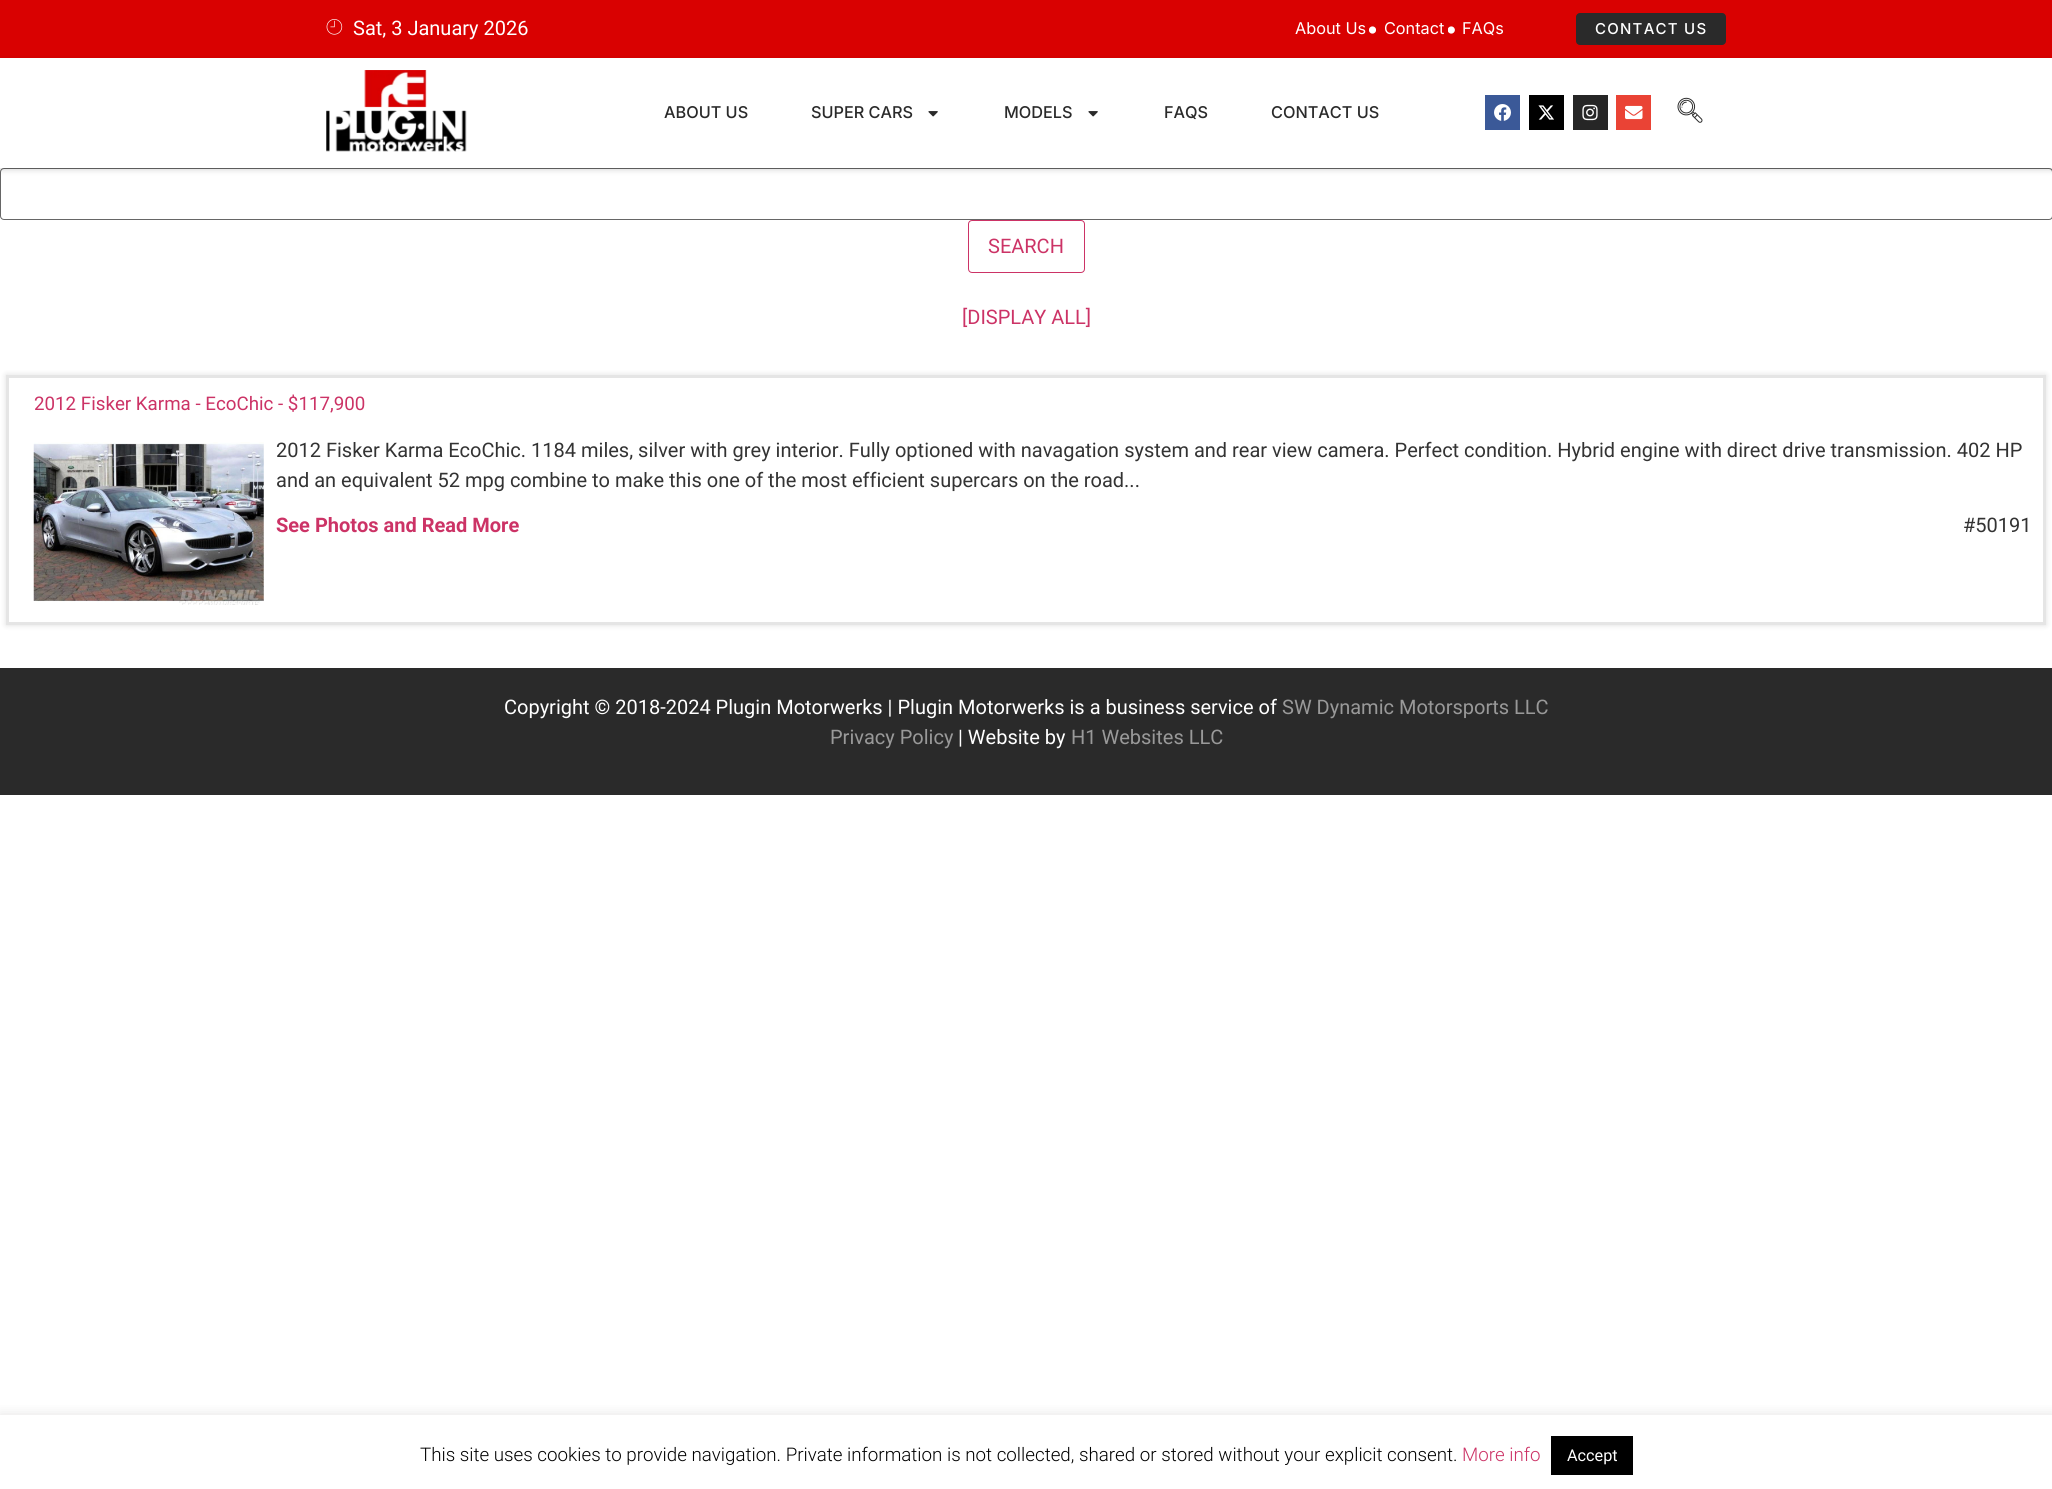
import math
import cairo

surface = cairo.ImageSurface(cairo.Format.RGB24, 2052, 1489)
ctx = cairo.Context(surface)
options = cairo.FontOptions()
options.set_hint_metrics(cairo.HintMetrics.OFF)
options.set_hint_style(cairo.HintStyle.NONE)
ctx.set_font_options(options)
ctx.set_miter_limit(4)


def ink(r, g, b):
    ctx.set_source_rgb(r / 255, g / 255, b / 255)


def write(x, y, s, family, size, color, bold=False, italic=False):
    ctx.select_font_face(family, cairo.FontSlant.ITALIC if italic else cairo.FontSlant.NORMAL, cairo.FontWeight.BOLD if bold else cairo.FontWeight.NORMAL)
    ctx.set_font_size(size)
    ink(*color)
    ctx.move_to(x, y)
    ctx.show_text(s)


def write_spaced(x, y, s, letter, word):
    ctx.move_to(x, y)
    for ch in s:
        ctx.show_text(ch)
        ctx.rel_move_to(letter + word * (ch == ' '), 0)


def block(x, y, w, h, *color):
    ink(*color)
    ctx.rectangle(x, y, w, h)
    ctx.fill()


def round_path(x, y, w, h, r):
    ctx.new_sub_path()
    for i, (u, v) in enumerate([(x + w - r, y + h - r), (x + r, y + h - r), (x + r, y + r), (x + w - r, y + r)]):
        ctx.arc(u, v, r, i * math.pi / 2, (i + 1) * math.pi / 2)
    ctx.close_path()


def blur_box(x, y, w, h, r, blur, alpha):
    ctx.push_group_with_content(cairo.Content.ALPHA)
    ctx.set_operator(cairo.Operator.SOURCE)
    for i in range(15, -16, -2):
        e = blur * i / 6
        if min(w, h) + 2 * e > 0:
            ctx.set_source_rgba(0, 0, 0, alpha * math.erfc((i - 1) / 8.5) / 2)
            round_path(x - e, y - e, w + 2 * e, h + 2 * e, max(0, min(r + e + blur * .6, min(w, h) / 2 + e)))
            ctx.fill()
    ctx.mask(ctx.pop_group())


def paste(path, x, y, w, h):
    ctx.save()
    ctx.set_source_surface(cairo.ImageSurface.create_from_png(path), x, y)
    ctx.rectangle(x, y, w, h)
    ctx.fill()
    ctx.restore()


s1 = dict(family="Roboto", size=20, color=(255, 255, 255))
s2 = dict(family="Inter", size=16.25, color=(255, 255, 255))
s3 = dict(family="Inter Medium", size=16.25, color=(42, 42, 42))
s4 = dict(family="Roboto", size=20, color=(204, 51, 102))
s5 = dict(family="Roboto", size=18.75, color=(204, 51, 102))
s6 = dict(family="Roboto", size=20, color=(51, 51, 51))
s7 = dict(family="Roboto", size=20, color=(204, 51, 102), bold=True)
s8 = dict(family="Roboto", size=20, color=(153, 153, 153))
s9 = dict(family="Roboto Light", size=18.75, color=(0, 0, 0))
s10 = dict(family="Roboto Light", size=18.75, color=(204, 51, 102))
s11 = dict(family="Roboto", size=16.25, color=(255, 255, 255))

ink(255, 255, 255)
ctx.paint()
block(0, 0, 2052, 58, 217, 1, 1)
paste("pic1.png", 326, 19, 17, 16)
write(353, 35, "Sat, 3 January 2026", **s1)
write(1295, 34, "About Us", **s2)
paste("pic2.png", 1369, 26, 7, 8)
write(1384, 34, "Contact", **s2)
paste("pic3.png", 1448, 26, 7, 8)
write(1462, 34, "FAQs", **s2)
ink(42, 42, 42)
round_path(1576, 13, 150, 32, 4)
ctx.fill()
ctx.select_font_face("Inter Medium")
ctx.set_font_size(15)
ink(255, 255, 255)
write_spaced(1595, 34, "CONTACT US", 1.25, 0)
round_path(0.5, 168.5, 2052, 51, 3.5)
ink(102, 102, 102)
ctx.set_line_width(1)
ctx.stroke()
ink(0, 0, 0)
blur_box(0, 60, 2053, 110, 0, 3, 0.15)
block(0, 58, 2052, 110, 255, 255, 255)
paste("pic4.png", 326, 70, 141, 82)
write(664, 118, "ABOUT US", **s3)
write(811, 118, "SUPER CARS", **s3)
paste("pic5.png", 928, 111, 10, 6)
write(1004, 118, "MODELS", **s3)
paste("pic5.png", 1088, 111, 10, 6)
write(1164, 118, "FAQS", **s3)
write(1271, 118, "CONTACT US", **s3)
block(1485, 95, 35, 35, 59, 89, 152)
paste("pic6.png", 1494, 104, 17, 17)
block(1529, 95, 35, 35, 0, 0, 0)
paste("pic7.png", 1538, 105, 16, 15)
block(1573, 95, 35, 35, 38, 38, 38)
paste("pic8.png", 1582, 104, 16, 17)
block(1616, 95, 35, 35, 234, 67, 53)
paste("pic9.png", 1625, 105, 18, 15)
paste("pic10.png", 1677, 97, 26, 26)
round_path(968.5, 220.5, 116, 52, 3.5)
ink(204, 51, 102)
ctx.stroke()
write(988, 253, "SEARCH", **s4)
write(962, 324, "[DISPLAY ALL]", **s4)
ctx.save()
ctx.set_fill_rule(cairo.FillRule.EVEN_ODD)
ctx.new_path()
ctx.move_to(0, 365)
ctx.line_to(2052, 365)
ctx.line_to(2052, 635)
ctx.line_to(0, 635)
ctx.close_path()
ctx.move_to(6, 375)
ctx.line_to(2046, 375)
ctx.line_to(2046, 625)
ctx.line_to(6, 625)
ctx.close_path()
ctx.clip()
ink(0, 0, 0)
blur_box(6, 375, 2040, 250, 0, 3, 0.13)
ctx.restore()
ctx.rectangle(7.5, 376.5, 2037, 247)
ink(229, 229, 229)
ctx.set_line_width(3)
ctx.stroke()
write(34, 410, "2012 Fisker Karma - EcoChic - $117,900", **s5)
paste("pic11.png", 33, 442, 231, 163)
write(276, 457, "2012 Fisker Karma EcoChic. 1184 miles, silver with grey interior. Fully optioned with navagation system and rear view camera. Perfect condition. Hybrid engine with direct drive transmission. 402 HP", **s6)
write(276, 487, "and an equivalent 52 mpg combine to make this one of the most efficient supercars on the road...", **s6)
write(276, 532, "See Photos and Read More", **s7)
write(1963, 532, "#50191", **s6)
block(0, 668, 2052, 127, 42, 42, 42)
write(504, 714, "Copyright © 2018-2024 Plugin Motorwerks | Plugin Motorwerks is a business service of", **s1)
write(1282, 714, "SW Dynamic Motorsports LLC", **s8)
write(830, 744, "Privacy Policy", **s8)
write(958, 744, "| Website by", **s1)
write(1071, 744, "H1 Websites LLC", **s8)
ctx.save()
ctx.rectangle(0, 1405, 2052, 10)
ctx.clip()
ink(172, 171, 171)
blur_box(0, 1414, 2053, 75, 0, 6, 0.3)
ctx.restore()
write(420, 1461, "This site uses cookies to provide navigation. Private information is not collected, shared or stored without your explicit consent.", **s9)
write(1462, 1461, "More info", **s10)
block(1551, 1436, 82, 39, 0, 0, 0)
write(1567, 1461, "Accept", **s11)
surface.write_to_png("screenshot.png")
